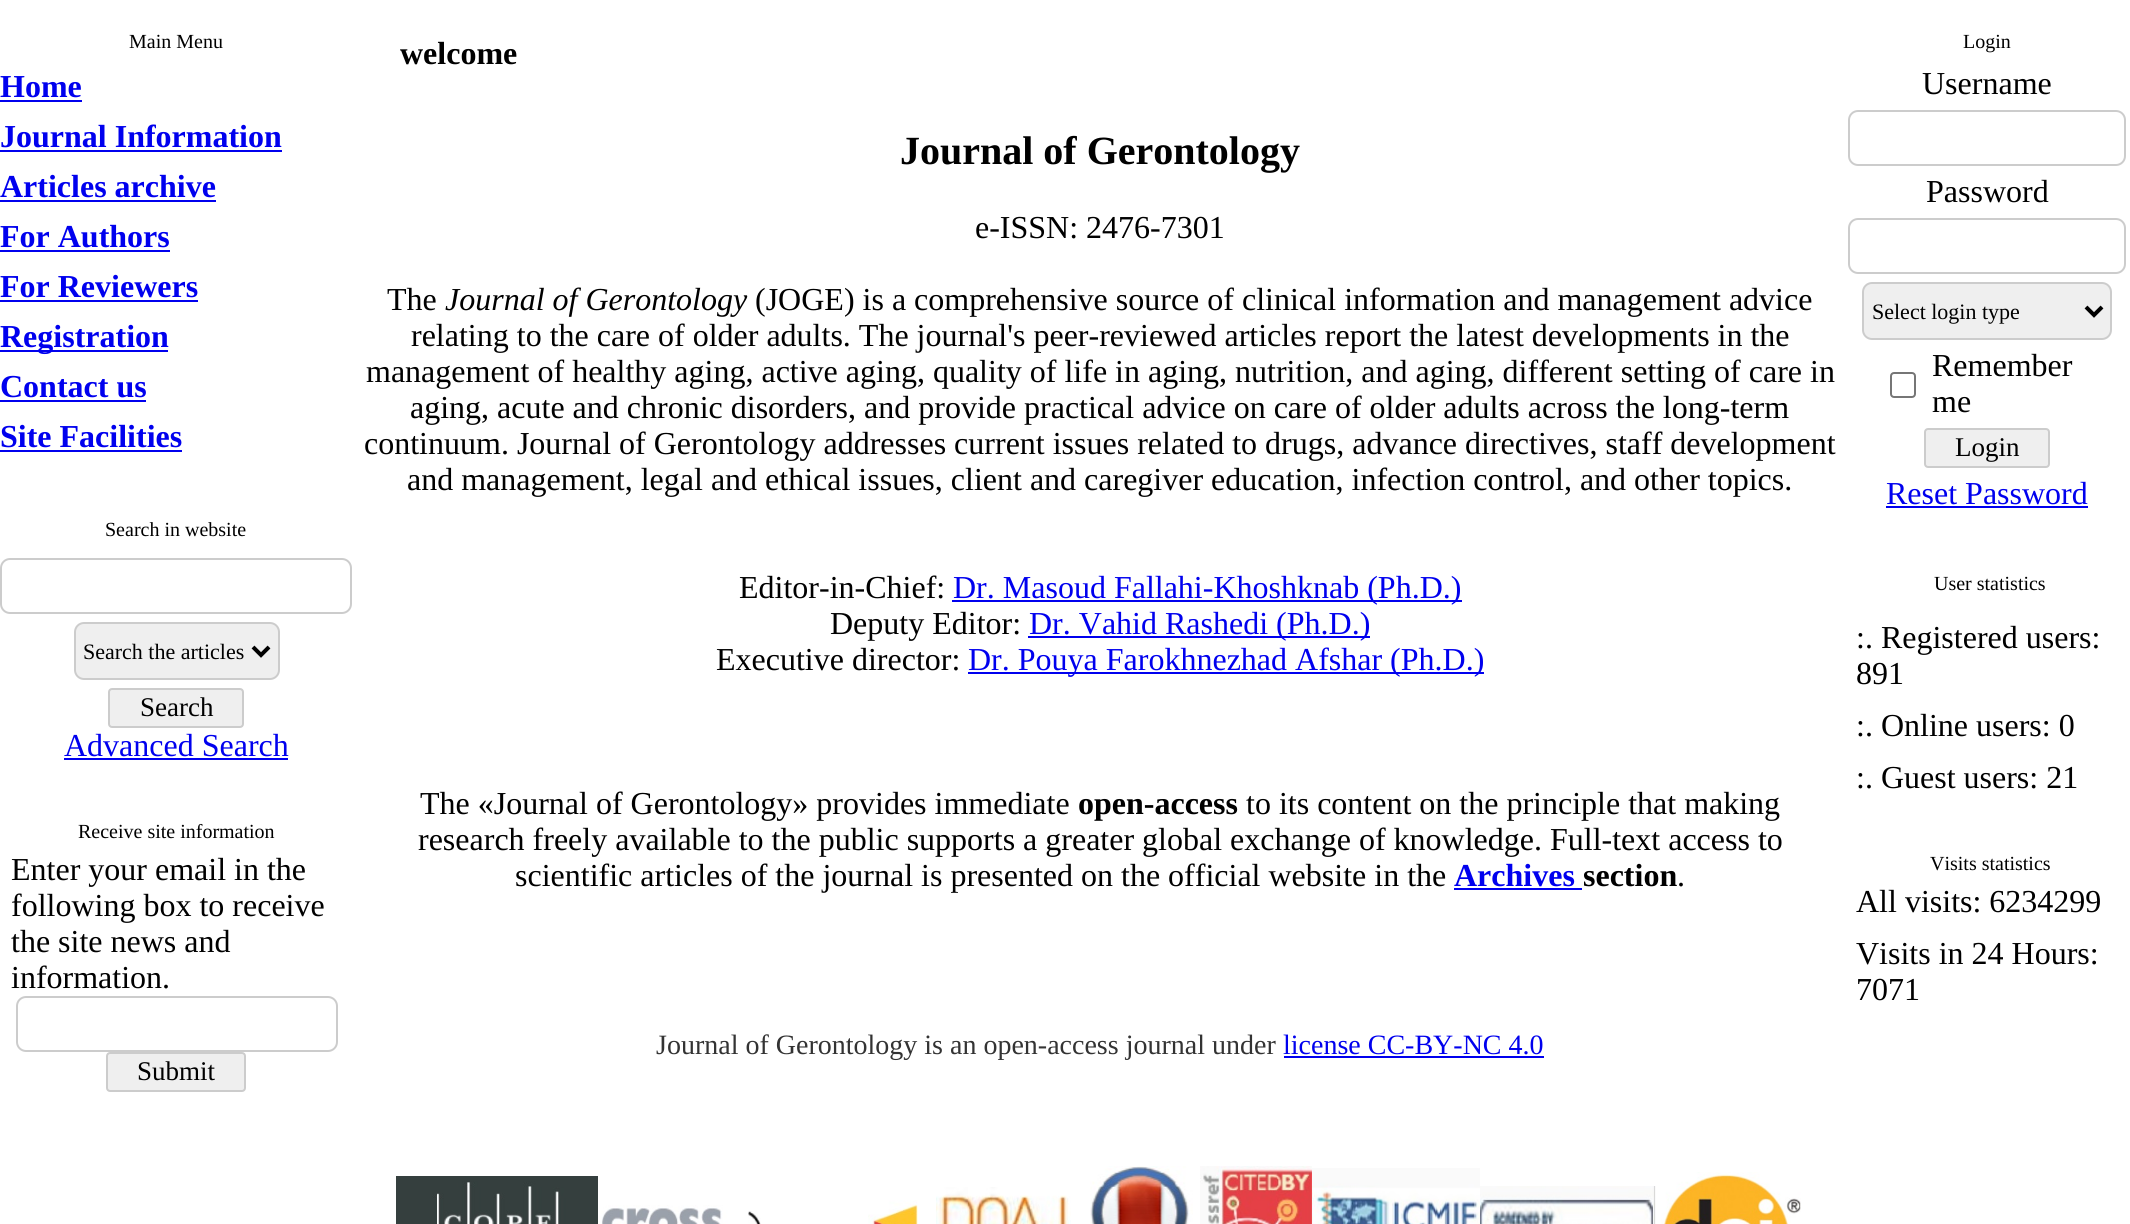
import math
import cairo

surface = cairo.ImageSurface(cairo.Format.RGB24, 2130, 1224)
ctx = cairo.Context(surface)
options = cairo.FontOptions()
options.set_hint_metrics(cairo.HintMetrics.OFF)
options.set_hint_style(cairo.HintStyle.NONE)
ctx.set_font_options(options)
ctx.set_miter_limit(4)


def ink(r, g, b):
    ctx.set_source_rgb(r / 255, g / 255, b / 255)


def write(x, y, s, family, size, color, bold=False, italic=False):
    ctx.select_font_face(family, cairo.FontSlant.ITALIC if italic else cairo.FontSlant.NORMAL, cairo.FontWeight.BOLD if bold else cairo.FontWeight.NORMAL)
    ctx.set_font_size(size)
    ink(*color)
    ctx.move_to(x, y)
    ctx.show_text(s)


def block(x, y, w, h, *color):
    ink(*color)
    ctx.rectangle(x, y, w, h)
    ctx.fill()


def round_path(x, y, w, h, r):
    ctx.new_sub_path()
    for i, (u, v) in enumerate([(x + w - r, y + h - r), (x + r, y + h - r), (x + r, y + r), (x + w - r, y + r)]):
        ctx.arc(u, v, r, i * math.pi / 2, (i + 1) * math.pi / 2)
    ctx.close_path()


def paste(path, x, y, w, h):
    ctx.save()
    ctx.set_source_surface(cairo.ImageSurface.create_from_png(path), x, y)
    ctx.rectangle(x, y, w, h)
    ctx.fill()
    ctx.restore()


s1 = dict(family="Liberation Serif", size=20, color=(0, 0, 0))
s2 = dict(family="Liberation Serif", size=32, color=(0, 0, 238), bold=True)
s3 = dict(family="Liberation Serif", size=22, color=(0, 0, 0))
s4 = dict(family="Liberation Serif", size=27, color=(0, 0, 0))
s5 = dict(family="Liberation Serif", size=32, color=(0, 0, 238))
s6 = dict(family="Liberation Serif", size=32, color=(0, 0, 0))
s7 = dict(family="Liberation Serif", size=32, color=(0, 0, 0), bold=True)
s8 = dict(family="Liberation Serif", size=40, color=(0, 0, 0), bold=True)
s9 = dict(family="Liberation Serif", size=32, color=(0, 0, 0), italic=True)
s10 = dict(family="Liberation Serif", size=28, color=(51, 51, 51))
s11 = dict(family="Liberation Serif", size=28, color=(0, 0, 238))

ink(255, 255, 255)
ctx.paint()
write(129, 48, "Main Menu", **s1)
write(0, 97, "Home", **s2)
block(0, 100, 82, 2, 0, 0, 238)
write(0, 147, "Journal Information", **s2)
block(0, 150, 282, 2, 0, 0, 238)
write(0, 197, "Articles archive", **s2)
block(0, 200, 216, 2, 0, 0, 238)
write(0, 247, "For Authors", **s2)
block(0, 250, 170, 2, 0, 0, 238)
write(0, 297, "For Reviewers", **s2)
block(0, 300, 198, 2, 0, 0, 238)
block(0, 350, 168, 2, 0, 0, 238)
write(0, 347, "Registration", **s2)
write(0, 397, "Contact us", **s2)
block(0, 400, 146, 2, 0, 0, 238)
write(0, 447, "Site Facilities", **s2)
block(0, 450, 182, 2, 0, 0, 238)
write(105, 536, "Search in website", **s1)
round_path(1, 559, 350, 54, 9)
ink(204, 204, 204)
ctx.stroke()
ink(239, 239, 239)
round_path(75, 623, 204, 56, 9)
ctx.fill_preserve()
ink(204, 204, 204)
ctx.stroke()
ctx.new_path()
ctx.move_to(253, 647)
ctx.line_to(261, 655)
ctx.line_to(269, 647)
ink(0, 0, 0)
ctx.set_line_width(4)
ctx.stroke()
write(83, 659, "Search the articles", **s3)
ink(239, 239, 239)
round_path(109, 689, 134, 38, 3)
ctx.fill_preserve()
ink(204, 204, 204)
ctx.set_line_width(2)
ctx.stroke()
write(140, 716, "Search", **s4)
write(64, 756, "Advanced Search", **s5)
block(64, 758, 224, 2, 0, 0, 238)
write(78, 838, "Receive site information", **s1)
write(11, 880, "Enter your email in the", **s6)
write(11, 916, "following box to receive", **s6)
write(11, 952, "the site news and", **s6)
write(11, 988, "information.", **s6)
round_path(17, 997, 320, 54, 9)
ink(204, 204, 204)
ctx.stroke()
ink(239, 239, 239)
round_path(107, 1053, 138, 38, 3)
ctx.fill_preserve()
ink(204, 204, 204)
ctx.stroke()
write(137, 1080, "Submit", **s4)
write(400, 64, "welcome", **s7)
write(900, 164, "Journal of Gerontology", **s8)
write(975, 238, "e-ISSN: 2476-7301", **s6)
write(387, 310, "The", **s6)
write(445, 310, "Journal of Gerontology", **s9)
write(755, 310, "(JOGE) is a comprehensive source of clinical information and management advice", **s6)
write(411, 346, "relating to the care of older adults. The journal's peer-reviewed articles report the latest developments in the", **s6)
write(366, 382, "management of healthy aging, active aging, quality of life in aging, nutrition, and aging, different setting of care in", **s6)
write(410, 418, "aging, acute and chronic disorders, and provide practical advice on care of older adults across the long-term", **s6)
write(364, 454, "continuum. Journal of Gerontology addresses current issues related to drugs, advance directives, staff development", **s6)
write(407, 490, "and management, legal and ethical issues, client and caregiver education, infection control, and other topics.", **s6)
write(739, 598, "Editor-in-Chief:", **s6)
block(952, 600, 510, 2, 0, 0, 238)
write(953, 598, "Dr. Masoud Fallahi-Khoshknab (Ph.D.)", **s5)
write(830, 634, "Deputy Editor:", **s6)
block(1028, 636, 342, 2, 0, 0, 238)
write(1029, 634, "Dr. Vahid Rashedi (Ph.D.)", **s5)
write(716, 670, "Executive director:", **s6)
block(968, 672, 516, 2, 0, 0, 238)
write(968, 670, "Dr. Pouya Farokhnezhad Afshar (Ph.D.)", **s5)
write(420, 814, "The «Journal of Gerontology» provides immediate", **s6)
write(1078, 814, "open-access", **s7)
write(1246, 814, "to its content on the principle that making", **s6)
write(418, 850, "research freely available to the public supports a greater global exchange of knowledge. Full-text access to", **s6)
write(515, 886, "scientific articles of the journal is presented on the official website in the", **s6)
write(1454, 886, "Archives", **s2)
block(1454, 888, 128, 2, 0, 0, 238)
write(1583, 886, "section", **s7)
write(1677, 886, ".", **s6)
write(656, 1054, "Journal of Gerontology is an open-access journal under", **s10)
write(1283, 1054, "license CC-BY-NC 4.0", **s11)
block(1284, 1056, 260, 2, 0, 0, 238)
paste("pic1.png", 396, 1176, 202, 48)
paste("pic2.png", 598, 1205, 163, 19)
paste("pic3.png", 868, 1200, 50, 24)
paste("pic4.png", 936, 1187, 135, 37)
paste("pic5.png", 1090, 1166, 103, 58)
paste("pic6.png", 1200, 1166, 112, 58)
paste("pic7.png", 1312, 1168, 168, 56)
paste("pic8.png", 1480, 1186, 176, 38)
paste("pic9.png", 1661, 1172, 140, 52)
write(1963, 48, "Login", **s1)
write(1922, 94, "Username", **s6)
round_path(1849, 111, 276, 54, 9)
ink(204, 204, 204)
ctx.stroke()
write(1926, 202, "Password", **s6)
round_path(1849, 219, 276, 54, 9)
ink(204, 204, 204)
ctx.stroke()
ink(239, 239, 239)
round_path(1863, 283, 248, 56, 9)
ctx.fill_preserve()
ink(204, 204, 204)
ctx.stroke()
ctx.new_path()
ctx.move_to(2086, 307)
ctx.line_to(2094, 315)
ctx.line_to(2102, 307)
ink(0, 0, 0)
ctx.set_line_width(4)
ctx.stroke()
write(1872, 319, "Select login type", **s3)
round_path(1891, 373, 24, 24, 3)
ink(118, 118, 118)
ctx.set_line_width(2)
ctx.stroke()
write(1932, 376, "Remember", **s6)
write(1932, 412, "me", **s6)
ink(239, 239, 239)
round_path(1925, 429, 124, 38, 3)
ctx.fill_preserve()
ink(204, 204, 204)
ctx.stroke()
write(1955, 456, "Login", **s4)
write(1886, 504, "Reset Password", **s5)
block(1886, 506, 202, 2, 0, 0, 238)
write(1934, 590, "User statistics", **s1)
write(1856, 648, ":. Registered users:", **s6)
write(1856, 684, "891", **s6)
write(1856, 736, ":. Online users: 0", **s6)
write(1856, 788, ":. Guest users: 21", **s6)
write(1930, 870, "Visits statistics", **s1)
write(1856, 912, "All visits: 6234299", **s6)
write(1856, 964, "Visits in 24 Hours:", **s6)
write(1856, 1000, "7071", **s6)
surface.write_to_png("screenshot.png")
